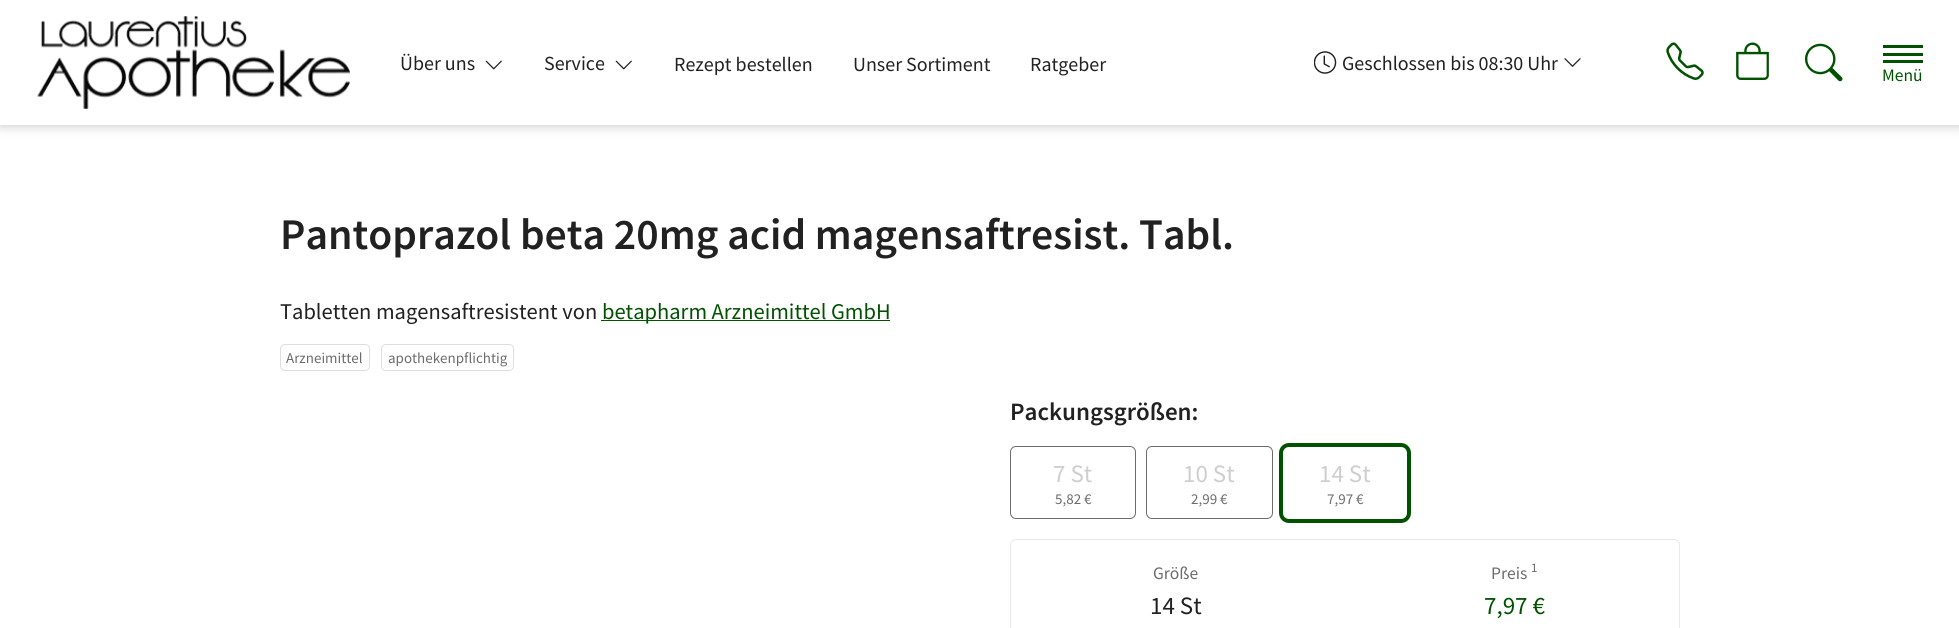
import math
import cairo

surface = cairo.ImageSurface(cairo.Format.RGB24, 1959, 628)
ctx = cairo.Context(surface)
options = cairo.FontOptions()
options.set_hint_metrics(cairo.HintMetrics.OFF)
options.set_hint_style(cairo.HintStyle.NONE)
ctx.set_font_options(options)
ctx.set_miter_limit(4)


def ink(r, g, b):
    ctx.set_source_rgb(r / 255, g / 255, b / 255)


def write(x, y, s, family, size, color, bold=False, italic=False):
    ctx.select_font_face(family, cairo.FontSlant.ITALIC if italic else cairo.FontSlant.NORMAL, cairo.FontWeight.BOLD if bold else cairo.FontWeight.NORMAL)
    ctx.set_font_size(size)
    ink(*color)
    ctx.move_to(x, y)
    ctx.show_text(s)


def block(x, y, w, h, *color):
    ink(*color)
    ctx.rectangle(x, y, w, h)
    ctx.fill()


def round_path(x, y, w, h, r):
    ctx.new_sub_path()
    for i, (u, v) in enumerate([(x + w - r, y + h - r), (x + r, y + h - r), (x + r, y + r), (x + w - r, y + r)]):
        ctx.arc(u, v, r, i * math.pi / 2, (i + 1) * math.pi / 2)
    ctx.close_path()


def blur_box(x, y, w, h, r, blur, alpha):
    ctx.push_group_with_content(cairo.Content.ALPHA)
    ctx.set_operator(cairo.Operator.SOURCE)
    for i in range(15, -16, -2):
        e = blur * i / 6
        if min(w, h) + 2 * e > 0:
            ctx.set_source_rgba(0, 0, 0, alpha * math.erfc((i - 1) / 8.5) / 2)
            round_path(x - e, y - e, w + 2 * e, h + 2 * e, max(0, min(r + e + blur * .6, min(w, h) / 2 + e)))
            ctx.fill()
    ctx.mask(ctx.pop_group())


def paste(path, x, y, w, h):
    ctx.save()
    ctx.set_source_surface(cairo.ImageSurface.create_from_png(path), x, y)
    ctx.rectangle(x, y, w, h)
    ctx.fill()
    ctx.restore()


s1 = dict(family="Source Sans Pro", size=20, color=(33, 33, 33))
s2 = dict(family="Source Sans Pro", size=17.5, color=(0, 82, 0))
s3 = dict(family="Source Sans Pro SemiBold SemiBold", size=43.75, color=(33, 33, 33))
s4 = dict(family="Source Sans Pro", size=22.5, color=(33, 33, 33))
s5 = dict(family="Source Sans Pro", size=22.5, color=(0, 82, 0))
s6 = dict(family="Source Sans Pro", size=15, color=(108, 108, 108))
s7 = dict(family="Source Sans Pro SemiBold SemiBold", size=25, color=(33, 33, 33))
s8 = dict(family="Source Sans Pro", size=25, color=(206, 206, 206))
s9 = dict(family="Source Sans Pro", size=17.5, color=(108, 108, 108))
s10 = dict(family="Source Sans Pro", size=25, color=(33, 33, 33))
s11 = dict(family="Source Sans Pro", size=13, color=(108, 108, 108))
s12 = dict(family="Source Sans Pro", size=25, color=(0, 82, 0))

ink(255, 255, 255)
ctx.paint()
ink(0, 0, 0)
blur_box(0, 0, 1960, 125, 0, 6, 0.25)
block(0, 0, 1959, 125, 255, 255, 255)
paste("pic1.png", 37, 16, 313, 93)
write(400, 70, "Über uns", **s1)
paste("pic2.png", 485, 60, 17, 10)
write(544, 70, "Service", **s1)
paste("pic2.png", 615, 60, 17, 10)
write(674, 71, "Rezept bestellen", **s1)
write(853, 71, "Unser Sortiment", **s1)
write(1030, 71, "Ratgeber", **s1)
paste("pic3.png", 1314, 51, 23, 23)
write(1342, 70, "Geschlossen bis 08:30 Uhr", **s1)
paste("pic4.png", 1564, 58, 17, 9)
paste("pic5.png", 1666, 42, 38, 38)
paste("pic6.png", 1736, 42, 33, 38)
paste("pic7.png", 1804, 43, 39, 39)
block(1883, 53, 40, 3, 0, 82, 0)
block(1883, 45, 40, 3, 0, 82, 0)
block(1883, 60, 40, 3, 0, 82, 0)
write(1882, 81, "Menü", **s2)
write(280, 249, "Pantoprazol beta 20mg acid magensaftresist. Tabl.", **s3)
write(280, 319, "Tabletten magensaftresistent von", **s4)
block(601, 320, 289, 1, 0, 82, 0)
write(602, 319, "betapharm Arzneimittel GmbH", **s5)
round_path(280.5, 344.5, 89, 26, 4.5)
ink(222, 222, 222)
ctx.set_line_width(1)
ctx.stroke()
write(286, 363, "Arzneimittel", **s6)
round_path(381.5, 344.5, 132, 26, 4.5)
ink(222, 222, 222)
ctx.stroke()
write(388, 363, "apothekenpflichtig", **s6)
write(1010, 420, "Packungsgrößen:", **s7)
round_path(1010.5, 446.5, 125, 72, 5.5)
ink(108, 108, 108)
ctx.stroke()
write(1053, 482, "7 St", **s8)
write(1055, 504, "5,82 €", **s6)
round_path(1146.5, 446.5, 126, 72, 5.5)
ctx.stroke()
write(1183, 482, "10 St", **s8)
write(1191, 504, "2,99 €", **s6)
round_path(1281, 445, 128, 76, 8)
ink(0, 82, 0)
ctx.set_line_width(4)
ctx.stroke()
write(1319, 482, "14 St", **s8)
write(1327, 504, "7,97 €", **s6)
round_path(1010.5, 539.5, 669, 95, 5.5)
ink(233, 233, 233)
ctx.set_line_width(1)
ctx.stroke()
write(1153, 579, "Größe", **s9)
write(1150, 614, "14 St", **s10)
write(1491, 579, "Preis", **s9)
write(1531, 572, "1", **s11)
write(1484, 614, "7,97 €", **s12)
surface.write_to_png("screenshot.png")
